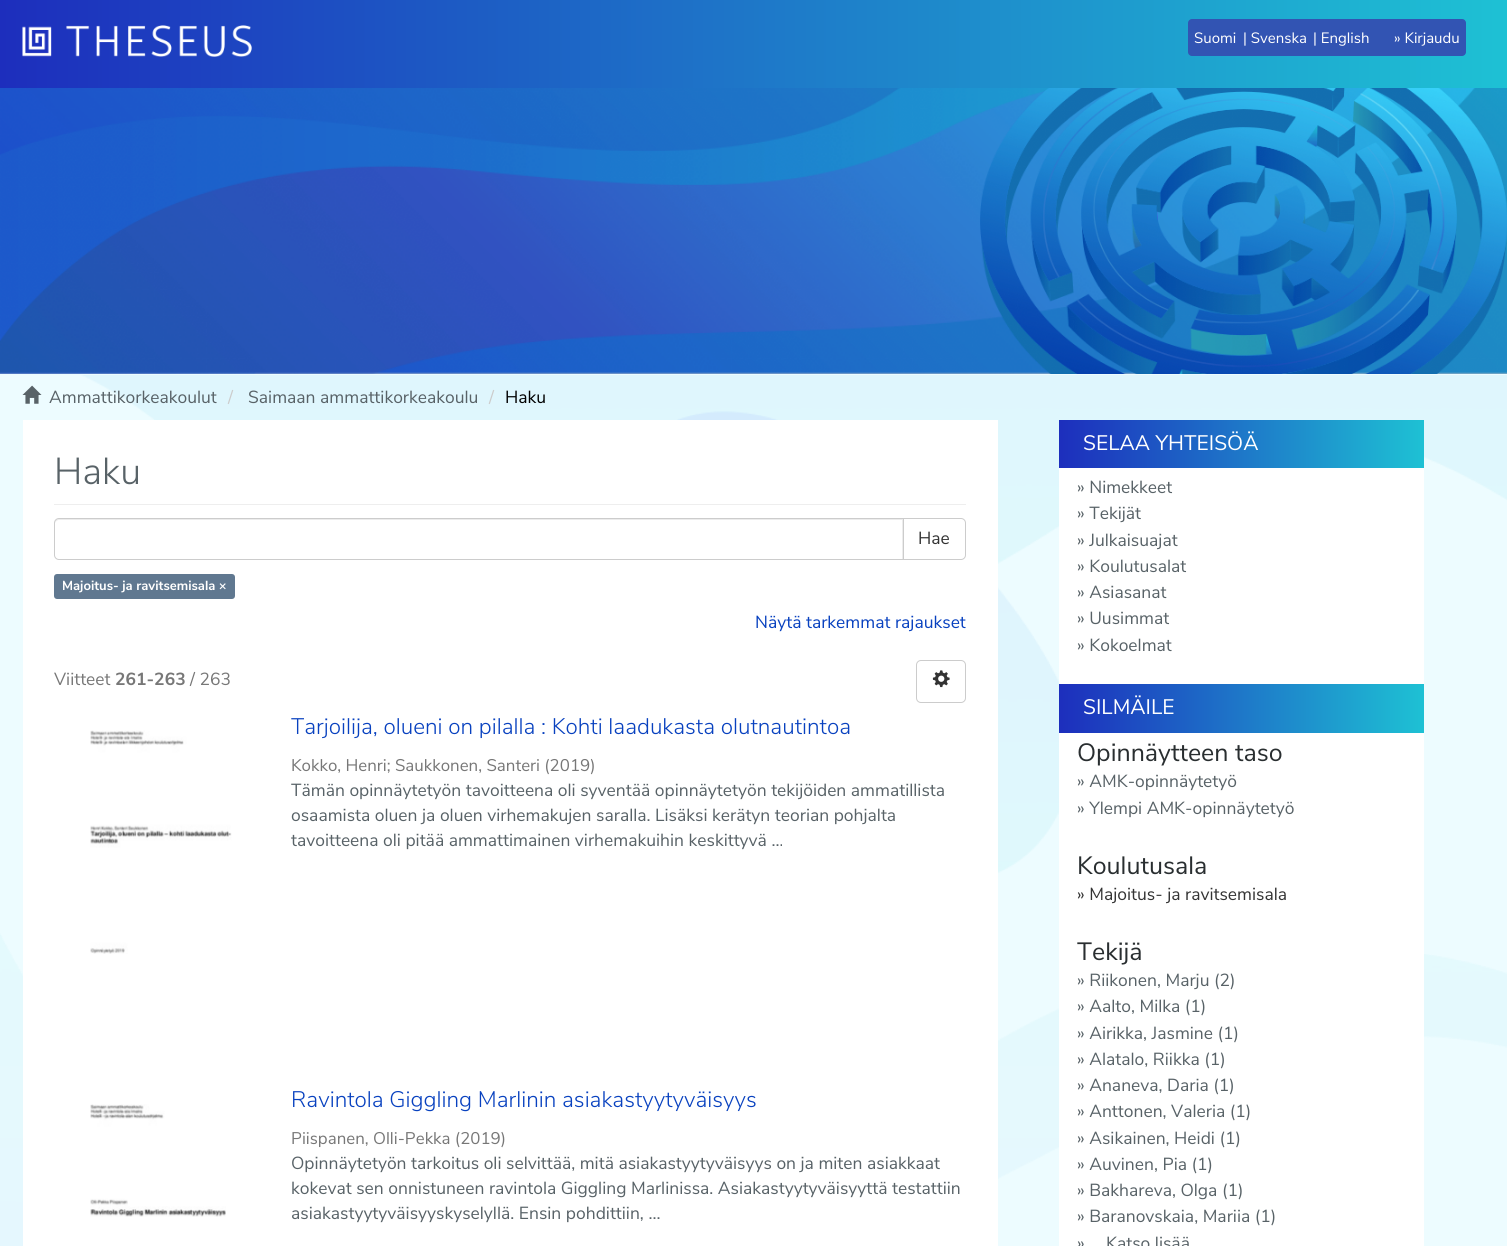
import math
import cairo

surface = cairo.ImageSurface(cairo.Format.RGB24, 1507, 1246)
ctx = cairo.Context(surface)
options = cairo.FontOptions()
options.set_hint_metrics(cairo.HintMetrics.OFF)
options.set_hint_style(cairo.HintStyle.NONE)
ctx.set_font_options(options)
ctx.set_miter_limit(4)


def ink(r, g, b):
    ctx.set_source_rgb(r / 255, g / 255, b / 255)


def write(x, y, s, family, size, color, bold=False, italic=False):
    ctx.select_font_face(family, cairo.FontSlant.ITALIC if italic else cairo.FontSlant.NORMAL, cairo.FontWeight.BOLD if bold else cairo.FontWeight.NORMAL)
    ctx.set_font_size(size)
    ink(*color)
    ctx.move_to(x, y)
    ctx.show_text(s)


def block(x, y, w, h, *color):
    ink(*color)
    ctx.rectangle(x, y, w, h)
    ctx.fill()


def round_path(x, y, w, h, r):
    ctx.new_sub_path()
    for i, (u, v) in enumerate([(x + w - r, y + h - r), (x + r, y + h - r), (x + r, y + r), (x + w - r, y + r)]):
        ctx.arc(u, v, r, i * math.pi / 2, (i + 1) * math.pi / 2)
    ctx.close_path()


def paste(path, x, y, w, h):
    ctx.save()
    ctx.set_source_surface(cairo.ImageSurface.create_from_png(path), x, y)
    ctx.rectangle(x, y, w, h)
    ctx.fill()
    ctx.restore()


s1 = dict(family="Nunito Sans", size=15, color=(255, 255, 255))
s2 = dict(family="Nunito Sans", size=17.5, color=(88, 98, 103))
s3 = dict(family="Nunito Sans", size=17.5, color=(204, 204, 204))
s4 = dict(family="Nunito Sans", size=17.5, color=(0, 0, 0))
s5 = dict(family="Nunito Sans Light", size=37.5, color=(88, 98, 103))
s6 = dict(family="Nunito Sans", size=17.5, color=(51, 51, 51))
s7 = dict(family="Nunito Sans", size=13.1, color=(255, 255, 255), bold=True)
s8 = dict(family="Nunito Sans", size=17.5, color=(8, 65, 191))
s9 = dict(family="Nunito Sans", size=17.5, color=(119, 119, 119))
s10 = dict(family="Nunito Sans", size=17.5, color=(119, 119, 119), bold=True)
s11 = dict(family="Nunito Sans Light", size=22.5, color=(8, 65, 191))
s12 = dict(family="Nunito Sans", size=16.9, color=(119, 119, 119))
s13 = dict(family="Nunito Sans", size=21, color=(255, 255, 255))
s14 = dict(family="Nunito Sans", size=25, color=(41, 46, 48))

ink(237, 252, 255)
ctx.paint()
paste("pic1.png", 0, 375, 1507, 871)
gradient = cairo.LinearGradient(0, 44, 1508, 44)
gradient.add_color_stop_rgba(0, 0.114, 0.18, 0.741, 1)
gradient.add_color_stop_rgba(1, 0.118, 0.757, 0.831, 1)
ctx.set_source(gradient)
ctx.rectangle(0, 0, 1507, 88)
ctx.fill()
paste("pic2.png", 22, 25, 230, 32)
ink(50, 84, 179)
round_path(1188, 19, 278, 37, 4)
ctx.fill()
write(1194, 43, "Suomi", **s1)
write(1243, 43, "| Svenska", **s1)
write(1313, 43, "| English", **s1)
write(1394, 43, "» Kirjaudu", **s1)
block(0, 372, 1507, 2, 170, 184, 198)
paste("pic3.png", 0, 88, 1507, 286)
paste("pic4.png", 22, 385, 20, 19)
write(49, 403, "Ammattikorkeakoulut", **s2)
write(228, 403, "/", **s3)
write(248, 403, "Saimaan ammattikorkeakoulu", **s2)
write(489, 403, "/", **s3)
write(505, 403, "Haku", **s4)
block(23, 420, 975, 826, 255, 255, 255)
block(54, 504, 912, 1, 238, 238, 238)
write(54, 484, "Haku", **s5)
ctx.new_path()
ctx.move_to(903.5, 518.5)
ctx.line_to(961, 518.5)
ctx.curve_to(963.5, 518.5, 965.5, 520.5, 965.5, 523)
ctx.line_to(965.5, 555)
ctx.curve_to(965.5, 557.5, 963.5, 559.5, 961, 559.5)
ctx.line_to(903.5, 559.5)
ctx.close_path()
ink(204, 204, 204)
ctx.set_line_width(1)
ctx.stroke()
ink(255, 255, 255)
ctx.new_path()
ctx.move_to(59, 518)
ctx.line_to(904, 518)
ctx.line_to(904, 560)
ctx.line_to(59, 560)
ctx.curve_to(56, 560, 54, 558, 54, 555)
ctx.line_to(54, 523)
ctx.curve_to(54, 520, 56, 518, 59, 518)
ctx.close_path()
ctx.fill()
ink(236, 236, 236)
ctx.new_path()
ctx.move_to(59, 520)
ctx.line_to(902, 520)
ctx.line_to(902, 559)
ctx.line_to(903, 559)
ctx.line_to(903, 519)
ctx.line_to(59, 519)
ctx.curve_to(56, 519, 55, 521, 55, 524)
ctx.curve_to(55, 522, 57, 520, 59, 520)
ctx.close_path()
ctx.fill()
ctx.new_path()
ctx.move_to(59, 518.5)
ctx.line_to(903.5, 518.5)
ctx.line_to(903.5, 559.5)
ctx.line_to(59, 559.5)
ctx.curve_to(56.5, 559.5, 54.5, 557.5, 54.5, 555)
ctx.line_to(54.5, 523)
ctx.curve_to(54.5, 520.5, 56.5, 518.5, 59, 518.5)
ctx.close_path()
ink(204, 204, 204)
ctx.stroke()
write(918, 544, "Hae", **s6)
ink(96, 120, 144)
round_path(54, 574, 181, 25, 3)
ctx.fill()
write(62, 590, "Majoitus- ja ravitsemisala ×", **s7)
write(755, 628, "Näytä tarkemmat rajaukset", **s8)
write(54, 685, "Viitteet", **s9)
write(115, 685, "261-263", **s10)
write(190, 685, "/ 263", **s9)
round_path(916.5, 660.5, 49, 42, 4.5)
ink(204, 204, 204)
ctx.stroke()
paste("pic5.png", 932, 670, 18, 18)
paste("pic6.png", 90, 730, 142, 224)
write(291, 734, "Tarjoilija, olueni on pilalla : Kohti laadukasta olutnautintoa", **s11)
write(291, 771, "Kokko, Henri; Saukkonen, Santeri (2019)", **s12)
write(291, 796, "Tämän opinnäytetyön tavoitteena oli syventää opinnäytetyön tekijöiden ammatillista", **s2)
write(291, 821, "osaamista oluen ja oluen virhemakujen saralla. Lisäksi kerätyn teorian pohjalta", **s2)
write(291, 846, "tavoitteena oli pitää ammattimainen virhemakuihin keskittyvä ...", **s2)
paste("pic7.png", 90, 1104, 136, 113)
write(291, 1107, "Ravintola Giggling Marlinin asiakastyytyväisyys", **s11)
write(291, 1144, "Piispanen, Olli-Pekka (2019)", **s12)
write(291, 1169, "Opinnäytetyön tarkoitus oli selvittää, mitä asiakastyytyväisyys on ja miten asiakkaat", **s2)
write(291, 1194, "kokevat sen onnistuneen ravintola Giggling Marlinissa. Asiakastyytyväisyyttä testattiin", **s2)
write(291, 1219, "asiakastyytyväisyyskyselyllä. Ensin pohdittiin, ...", **s2)
block(1059, 468, 365, 778, 255, 255, 255)
gradient = cairo.LinearGradient(1059, 444, 1424, 444)
gradient.add_color_stop_rgba(0, 0.114, 0.18, 0.741, 1)
gradient.add_color_stop_rgba(1, 0.118, 0.757, 0.831, 1)
ctx.set_source(gradient)
ctx.rectangle(1059, 420, 365, 48)
ctx.fill()
write(1083, 450, "SELAA YHTEISÖÄ", **s13)
write(1077, 493, "» Nimekkeet", **s2)
write(1077, 519, "» Tekijät", **s2)
write(1077, 546, "» Julkaisuajat", **s2)
write(1077, 572, "» Koulutusalat", **s2)
write(1077, 598, "» Asiasanat", **s2)
write(1077, 624, "» Uusimmat", **s2)
write(1077, 651, "» Kokoelmat", **s2)
gradient = cairo.LinearGradient(1059, 708, 1424, 708)
gradient.add_color_stop_rgba(0, 0.114, 0.18, 0.741, 1)
gradient.add_color_stop_rgba(1, 0.118, 0.757, 0.831, 1)
ctx.set_source(gradient)
ctx.rectangle(1059, 684, 365, 49)
ctx.fill()
write(1083, 714, "SILMÄILE", **s13)
write(1077, 761, "Opinnäytteen taso", **s14)
write(1077, 787, "» AMK-opinnäytetyö", **s2)
write(1077, 814, "» Ylempi AMK-opinnäytetyö", **s2)
write(1077, 874, "Koulutusala", **s14)
write(1077, 900, "» Majoitus- ja ravitsemisala", **s6)
write(1077, 960, "Tekijä", **s14)
write(1077, 986, "» Riikonen, Marju (2)", **s2)
write(1077, 1012, "» Aalto, Milka (1)", **s2)
write(1077, 1039, "» Airikka, Jasmine (1)", **s2)
write(1077, 1065, "» Alatalo, Riikka (1)", **s2)
write(1077, 1091, "» Ananeva, Daria (1)", **s2)
write(1077, 1117, "» Anttonen, Valeria (1)", **s2)
write(1077, 1144, "» Asikainen, Heidi (1)", **s2)
write(1077, 1170, "» Auvinen, Pia (1)", **s2)
write(1077, 1196, "» Bakhareva, Olga (1)", **s2)
write(1077, 1222, "» Baranovskaia, Mariia (1)", **s2)
write(1077, 1249, "»", **s2)
write(1106, 1249, "Katso lisää", **s2)
surface.write_to_png("screenshot.png")
